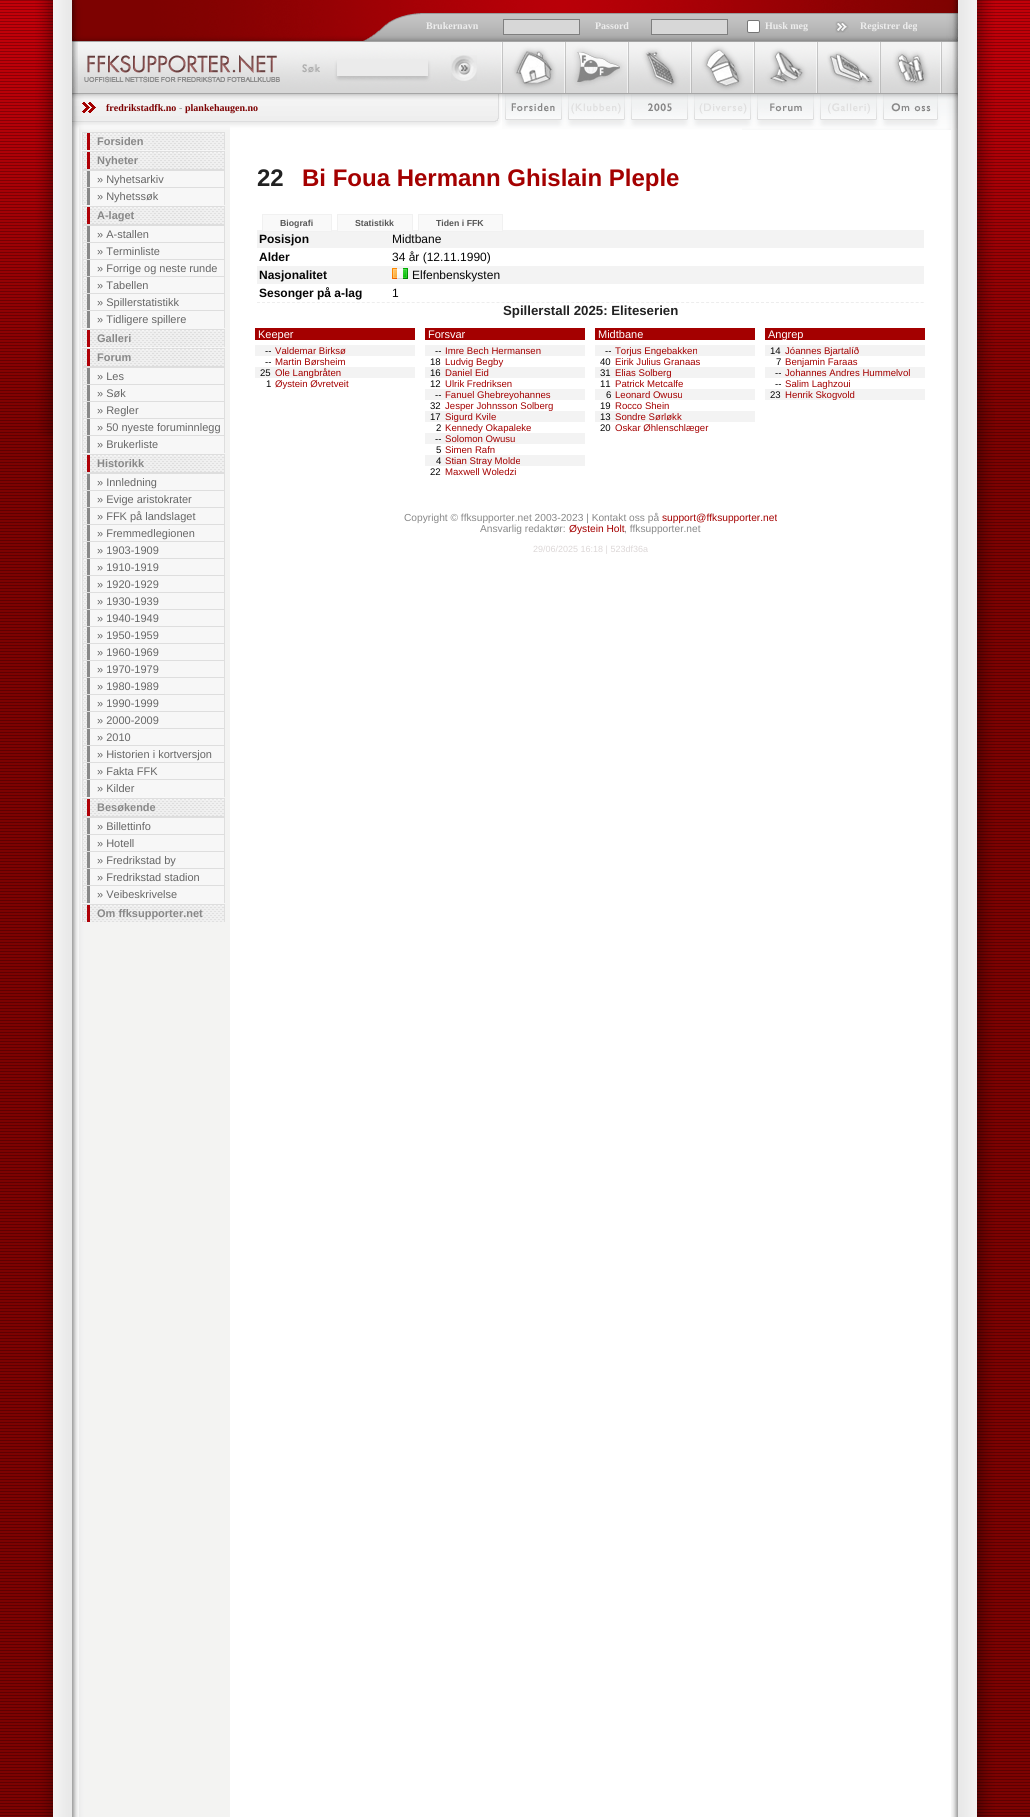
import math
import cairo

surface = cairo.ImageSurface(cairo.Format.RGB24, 1030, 1817)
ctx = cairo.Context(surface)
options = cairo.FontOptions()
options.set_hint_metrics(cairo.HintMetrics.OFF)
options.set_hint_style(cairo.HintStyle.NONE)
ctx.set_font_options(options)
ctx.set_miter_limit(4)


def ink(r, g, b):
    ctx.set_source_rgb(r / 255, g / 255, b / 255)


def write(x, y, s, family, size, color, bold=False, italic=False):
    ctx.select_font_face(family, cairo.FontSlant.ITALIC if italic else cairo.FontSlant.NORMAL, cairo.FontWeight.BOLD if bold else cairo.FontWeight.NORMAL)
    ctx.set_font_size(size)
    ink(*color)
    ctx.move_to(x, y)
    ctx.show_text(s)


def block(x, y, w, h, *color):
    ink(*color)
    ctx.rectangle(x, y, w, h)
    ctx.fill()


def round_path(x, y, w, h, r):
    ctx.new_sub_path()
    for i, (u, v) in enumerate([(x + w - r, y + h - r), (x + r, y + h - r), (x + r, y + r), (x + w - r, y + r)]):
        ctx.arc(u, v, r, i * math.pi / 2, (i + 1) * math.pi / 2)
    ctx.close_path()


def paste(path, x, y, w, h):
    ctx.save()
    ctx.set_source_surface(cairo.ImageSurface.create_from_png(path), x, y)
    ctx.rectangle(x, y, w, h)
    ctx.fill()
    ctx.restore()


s1 = dict(family="Liberation Serif", size=10, color=(237, 237, 237), bold=True)
s2 = dict(family="Liberation Serif", size=10, color=(125, 1, 2), bold=True)
s3 = dict(family="Liberation Serif", size=10, color=(136, 136, 136))
s4 = dict(family="Liberation Sans", size=11, color=(136, 136, 136), bold=True)
s5 = dict(family="Liberation Sans", size=11, color=(102, 102, 102))
s6 = dict(family="Liberation Sans", size=24, color=(34, 34, 34), bold=True)
s7 = dict(family="Liberation Sans", size=24, color=(164, 0, 0), bold=True)
s8 = dict(family="Liberation Sans", size=8.75, color=(85, 85, 85), bold=True)
s9 = dict(family="Liberation Sans", size=12, color=(5, 5, 5), bold=True)
s10 = dict(family="Liberation Sans", size=12, color=(5, 5, 5))
s11 = dict(family="Liberation Sans", size=13.25, color=(34, 34, 34), bold=True)
s12 = dict(family="Liberation Sans", size=11, color=(255, 255, 255))
s13 = dict(family="Liberation Sans", size=9.6, color=(5, 5, 5))
s14 = dict(family="Liberation Sans", size=9.6, color=(164, 0, 0))
s15 = dict(family="Liberation Sans", size=10.2, color=(136, 136, 136))
s16 = dict(family="Liberation Sans", size=10.2, color=(164, 0, 0))
s17 = dict(family="Liberation Sans", size=9, color=(220, 215, 215))

ink(255, 255, 255)
ctx.paint()
paste("pic1.png", 0, 0, 1030, 1817)
paste("pic2.png", 35, 408, 960, 1409)
paste("pic3.png", 35, 0, 18, 435)
paste("pic4.png", 53, 0, 924, 1817)
paste("pic5.png", 72, 0, 886, 41)
write(426, 29, "Brukernavn", **s1)
ink(215, 215, 215)
ctx.rectangle(503.5, 19.5, 76, 15)
ctx.fill_preserve()
ink(127, 127, 127)
ctx.set_line_width(1)
ctx.stroke()
write(595, 29, "Passord", **s1)
ink(215, 215, 215)
ctx.rectangle(651.5, 19.5, 76, 15)
ctx.fill_preserve()
ink(127, 127, 127)
ctx.stroke()
ink(255, 255, 255)
round_path(747.5, 20.5, 12, 12, 1.5)
ctx.fill_preserve()
ink(118, 118, 118)
ctx.stroke()
write(765, 29, "Husk meg", **s1)
paste("pic6.png", 835, 21, 14, 12)
write(860, 29, "Registrer deg", **s1)
paste("pic7.png", 72, 41, 886, 89)
paste("pic8.png", 78, 41, 202, 53)
paste("pic9.png", 302, 64, 18, 9)
paste("pic10.png", 451, 55, 26, 26)
paste("pic11.png", 504, 42, 61, 50)
paste("pic12.png", 565, 42, 63, 50)
paste("pic13.png", 628, 42, 63, 50)
paste("pic14.png", 691, 42, 63, 50)
paste("pic15.png", 754, 42, 63, 50)
paste("pic16.png", 817, 42, 63, 50)
paste("pic17.png", 880, 42, 61, 50)
write(106, 111, "fredrikstadfk.no", **s2)
write(179, 111, "-", **s3)
write(185, 111, "plankehaugen.no", **s2)
block(81, 132, 143, 790, 247, 247, 247)
paste("pic18.png", 82, 132, 143, 18)
write(97, 145, "Forsiden", **s4)
paste("pic19.png", 82, 151, 143, 19)
write(97, 164, "Nyheter", **s4)
paste("pic20.png", 82, 170, 143, 17)
write(97, 183, "» Nyhetsarkiv", **s5)
paste("pic21.png", 82, 187, 143, 18)
write(97, 200, "» Nyhetssøk", **s5)
paste("pic19.png", 82, 206, 143, 19)
write(97, 219, "A-laget", **s4)
paste("pic20.png", 82, 225, 143, 17)
write(97, 238, "» A-stallen", **s5)
paste("pic20.png", 82, 242, 143, 17)
write(97, 255, "» Terminliste", **s5)
paste("pic20.png", 82, 259, 143, 17)
write(97, 272, "» Forrige og neste runde", **s5)
paste("pic20.png", 82, 276, 143, 17)
write(97, 289, "» Tabellen", **s5)
paste("pic20.png", 82, 293, 143, 17)
write(97, 306, "» Spillerstatistikk", **s5)
paste("pic21.png", 82, 310, 143, 18)
write(97, 323, "» Tidligere spillere", **s5)
paste("pic18.png", 82, 329, 143, 18)
write(97, 342, "Galleri", **s4)
paste("pic19.png", 82, 348, 143, 19)
write(97, 361, "Forum", **s4)
paste("pic20.png", 82, 367, 143, 17)
write(97, 380, "» Les", **s5)
paste("pic20.png", 82, 384, 143, 17)
write(97, 397, "» Søk", **s5)
paste("pic20.png", 82, 401, 143, 17)
write(97, 414, "» Regler", **s5)
paste("pic20.png", 82, 418, 143, 17)
write(97, 431, "» 50 nyeste foruminnlegg", **s5)
paste("pic21.png", 82, 435, 143, 18)
write(97, 448, "» Brukerliste", **s5)
paste("pic19.png", 82, 454, 143, 19)
write(97, 467, "Historikk", **s4)
paste("pic20.png", 82, 473, 143, 17)
write(97, 486, "» Innledning", **s5)
paste("pic20.png", 82, 490, 143, 17)
write(97, 503, "» Evige aristokrater", **s5)
paste("pic20.png", 82, 507, 143, 17)
write(97, 520, "» FFK på landslaget", **s5)
paste("pic20.png", 82, 524, 143, 17)
write(97, 537, "» Fremmedlegionen", **s5)
paste("pic20.png", 82, 541, 143, 17)
write(97, 554, "» 1903-1909", **s5)
paste("pic20.png", 82, 558, 143, 17)
write(97, 571, "» 1910-1919", **s5)
paste("pic20.png", 82, 575, 143, 17)
write(97, 588, "» 1920-1929", **s5)
paste("pic20.png", 82, 592, 143, 17)
write(97, 605, "» 1930-1939", **s5)
paste("pic20.png", 82, 609, 143, 17)
write(97, 622, "» 1940-1949", **s5)
paste("pic20.png", 82, 626, 143, 17)
write(97, 639, "» 1950-1959", **s5)
paste("pic20.png", 82, 643, 143, 17)
write(97, 656, "» 1960-1969", **s5)
paste("pic20.png", 82, 660, 143, 17)
write(97, 673, "» 1970-1979", **s5)
paste("pic20.png", 82, 677, 143, 17)
write(97, 690, "» 1980-1989", **s5)
paste("pic20.png", 82, 694, 143, 17)
write(97, 707, "» 1990-1999", **s5)
paste("pic20.png", 82, 711, 143, 17)
write(97, 724, "» 2000-2009", **s5)
paste("pic20.png", 82, 728, 143, 17)
write(97, 741, "» 2010", **s5)
paste("pic20.png", 82, 745, 143, 17)
write(97, 758, "» Historien i kortversjon", **s5)
paste("pic20.png", 82, 762, 143, 17)
write(97, 775, "» Fakta FFK", **s5)
paste("pic21.png", 82, 779, 143, 18)
write(97, 792, "» Kilder", **s5)
paste("pic19.png", 82, 798, 143, 19)
write(97, 811, "Besøkende", **s4)
paste("pic20.png", 82, 817, 143, 17)
write(97, 830, "» Billettinfo", **s5)
paste("pic20.png", 82, 834, 143, 17)
write(97, 847, "» Hotell", **s5)
paste("pic20.png", 82, 851, 143, 17)
write(97, 864, "» Fredrikstad by", **s5)
paste("pic20.png", 82, 868, 143, 17)
write(97, 881, "» Fredrikstad stadion", **s5)
paste("pic21.png", 82, 885, 143, 18)
write(97, 898, "» Veibeskrivelse", **s5)
paste("pic18.png", 82, 904, 143, 18)
write(97, 917, "Om ffksupporter.net", **s4)
write(257, 186, "22", **s6)
write(302, 186, "Bi Foua Hermann Ghislain Pleple", **s7)
block(257, 230, 667, 18, 243, 243, 243)
ink(249, 249, 249)
ctx.rectangle(262.5, 214.5, 69, 17)
ctx.fill_preserve()
ink(241, 241, 241)
ctx.stroke()
write(280, 226, "Biografi", **s8)
ink(249, 249, 249)
ctx.rectangle(337.5, 214.5, 75, 17)
ctx.fill_preserve()
ink(241, 241, 241)
ctx.stroke()
write(355, 226, "Statistikk", **s8)
ink(249, 249, 249)
ctx.rectangle(418.5, 214.5, 84, 17)
ctx.fill_preserve()
ink(241, 241, 241)
ctx.stroke()
write(436, 226, "Tiden i FFK", **s8)
ctx.new_path()
ctx.move_to(257, 302.5)
ctx.line_to(924, 302.5)
ink(237, 237, 237)
ctx.set_dash([3, 1.99])
ctx.stroke()
write(259, 243, "Posisjon", **s9)
write(392, 243, "Midtbane", **s10)
write(259, 261, "Alder", **s9)
write(392, 261, "34 år (12.11.1990)", **s10)
block(257, 266, 667, 18, 243, 243, 243)
write(259, 279, "Nasjonalitet", **s9)
paste("pic22.png", 392, 268, 16, 11)
write(412, 279, "Elfenbenskysten", **s10)
write(259, 297, "Sesonger på a-lag", **s9)
write(392, 297, "1", **s10)
write(503, 315, "Spillerstall 2025: Eliteserien", **s11)
block(255, 328, 160, 12, 164, 0, 0)
write(258, 338, "Keeper", **s12)
block(255, 345, 160, 11, 243, 243, 243)
write(265, 354, "--", **s13)
write(275, 354, "Valdemar Birksø", **s14)
write(265, 365, "--", **s13)
write(275, 365, "Martin Børsheim", **s14)
block(255, 367, 160, 11, 243, 243, 243)
write(260, 376, "25", **s13)
write(275, 376, "Ole Langbråten", **s14)
write(266, 387, "1", **s13)
write(275, 387, "Øystein Øvretveit", **s14)
block(425, 328, 160, 12, 164, 0, 0)
write(428, 338, "Forsvar", **s12)
block(425, 345, 160, 11, 243, 243, 243)
write(435, 354, "--", **s13)
write(445, 354, "Imre Bech Hermansen", **s14)
write(430, 365, "18", **s13)
write(445, 365, "Ludvig Begby", **s14)
block(425, 367, 160, 11, 243, 243, 243)
write(430, 376, "16", **s13)
write(445, 376, "Daniel Eid", **s14)
write(430, 387, "12", **s13)
write(445, 387, "Ulrik Fredriksen", **s14)
block(425, 389, 160, 11, 243, 243, 243)
write(435, 398, "--", **s13)
write(445, 398, "Fanuel Ghebreyohannes", **s14)
write(430, 409, "32", **s13)
write(445, 409, "Jesper Johnsson Solberg", **s14)
block(425, 411, 160, 11, 243, 243, 243)
write(430, 420, "17", **s13)
write(445, 420, "Sigurd Kvile", **s14)
write(436, 431, "2", **s13)
write(445, 431, "Kennedy Okapaleke", **s14)
block(425, 433, 160, 11, 243, 243, 243)
write(435, 442, "--", **s13)
write(445, 442, "Solomon Owusu", **s14)
write(436, 453, "5", **s13)
write(445, 453, "Simen Rafn", **s14)
block(425, 455, 160, 11, 243, 243, 243)
write(436, 464, "4", **s13)
write(445, 464, "Stian Stray Molde", **s14)
write(430, 475, "22", **s13)
write(445, 475, "Maxwell Woledzi", **s14)
block(595, 328, 160, 12, 164, 0, 0)
write(598, 338, "Midtbane", **s12)
block(595, 345, 160, 11, 243, 243, 243)
write(605, 354, "--", **s13)
write(615, 354, "Torjus Engebakken", **s14)
write(600, 365, "40", **s13)
write(615, 365, "Eirik Julius Granaas", **s14)
block(595, 367, 160, 11, 243, 243, 243)
write(600, 376, "31", **s13)
write(615, 376, "Elias Solberg", **s14)
write(600, 387, "11", **s13)
write(615, 387, "Patrick Metcalfe", **s14)
block(595, 389, 160, 11, 243, 243, 243)
write(606, 398, "6", **s13)
write(615, 398, "Leonard Owusu", **s14)
write(600, 409, "19", **s13)
write(615, 409, "Rocco Shein", **s14)
block(595, 411, 160, 11, 243, 243, 243)
write(600, 420, "13", **s13)
write(615, 420, "Sondre Sørløkk", **s14)
write(600, 431, "20", **s13)
write(615, 431, "Oskar Øhlenschlæger", **s14)
block(765, 328, 160, 12, 164, 0, 0)
write(768, 338, "Angrep", **s12)
block(765, 345, 160, 11, 243, 243, 243)
write(770, 354, "14", **s13)
write(785, 354, "Jóannes Bjartalíð", **s14)
write(776, 365, "7", **s13)
write(785, 365, "Benjamin Faraas", **s14)
block(765, 367, 160, 11, 243, 243, 243)
write(775, 376, "--", **s13)
write(785, 376, "Johannes Andres Hummelvol", **s14)
write(775, 387, "--", **s13)
write(785, 387, "Salim Laghzoui", **s14)
block(765, 389, 160, 11, 243, 243, 243)
write(770, 398, "23", **s13)
write(785, 398, "Henrik Skogvold", **s14)
write(404, 521, "Copyright © ffksupporter.net 2003-2023 | Kontakt oss på", **s15)
write(662, 521, "support@ffksupporter.net", **s16)
write(480, 532, "Ansvarlig redaktør:", **s15)
write(569, 532, "Øystein Holt", **s16)
write(624, 532, ", ffksupporter.net", **s15)
write(533, 552, "29/06/2025 16:18 | 523df36a", **s17)
paste("pic23.png", 977, 0, 18, 408)
surface.write_to_png("screenshot.png")
